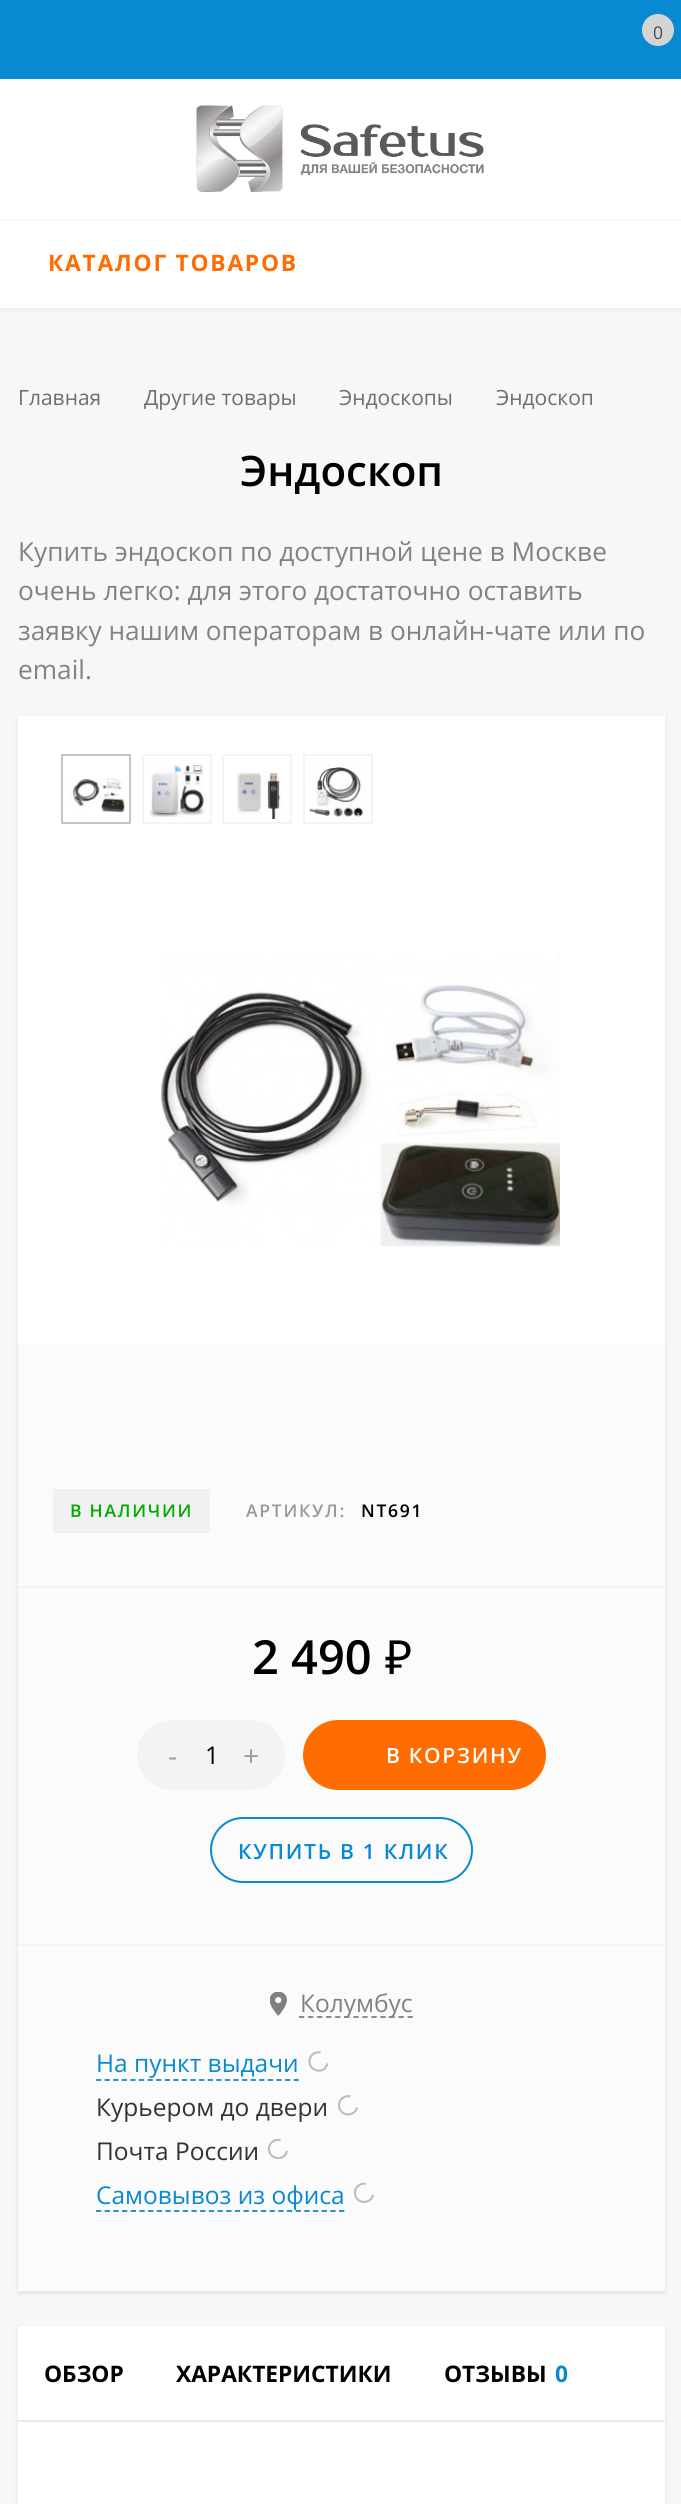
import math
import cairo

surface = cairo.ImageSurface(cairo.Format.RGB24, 681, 2504)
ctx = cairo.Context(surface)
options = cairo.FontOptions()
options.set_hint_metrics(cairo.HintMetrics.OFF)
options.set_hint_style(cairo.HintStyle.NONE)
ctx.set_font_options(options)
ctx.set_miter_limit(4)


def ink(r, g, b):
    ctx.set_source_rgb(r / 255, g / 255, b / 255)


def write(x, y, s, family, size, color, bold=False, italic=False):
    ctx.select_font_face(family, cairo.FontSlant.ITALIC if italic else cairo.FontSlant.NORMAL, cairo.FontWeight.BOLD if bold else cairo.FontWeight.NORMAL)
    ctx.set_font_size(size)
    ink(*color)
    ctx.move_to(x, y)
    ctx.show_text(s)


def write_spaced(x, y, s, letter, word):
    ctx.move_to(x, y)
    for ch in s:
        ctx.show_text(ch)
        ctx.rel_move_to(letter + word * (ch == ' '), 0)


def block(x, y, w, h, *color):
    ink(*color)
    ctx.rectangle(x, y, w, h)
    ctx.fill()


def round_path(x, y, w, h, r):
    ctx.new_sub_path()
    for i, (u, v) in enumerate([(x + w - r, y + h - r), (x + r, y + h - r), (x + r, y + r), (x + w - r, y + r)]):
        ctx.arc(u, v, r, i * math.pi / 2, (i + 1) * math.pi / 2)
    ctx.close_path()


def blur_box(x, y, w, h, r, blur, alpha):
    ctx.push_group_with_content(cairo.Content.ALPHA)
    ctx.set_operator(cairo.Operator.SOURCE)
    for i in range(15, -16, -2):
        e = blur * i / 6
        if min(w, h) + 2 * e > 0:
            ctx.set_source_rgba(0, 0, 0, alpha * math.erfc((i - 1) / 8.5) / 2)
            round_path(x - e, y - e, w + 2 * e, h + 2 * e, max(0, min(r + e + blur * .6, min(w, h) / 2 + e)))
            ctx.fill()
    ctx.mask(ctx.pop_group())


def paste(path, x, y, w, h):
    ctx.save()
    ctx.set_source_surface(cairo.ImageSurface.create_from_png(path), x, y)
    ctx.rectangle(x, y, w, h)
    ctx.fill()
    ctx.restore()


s1 = dict(family="Open Sans", size=17.5, color=(74, 74, 74))
s2 = dict(family="Open Sans", size=21, color=(110, 110, 110))
s3 = dict(family="Open Sans SemiBold", size=42, color=(0, 0, 0))
s4 = dict(family="Open Sans", size=26.25, color=(130, 130, 130))
s5 = dict(family="Open Sans SemiBold", size=47, color=(0, 0, 0))
s6 = dict(family="Noto Sans", size=47, color=(0, 0, 0))
s7 = dict(family="Open Sans", size=28, color=(153, 153, 153))
s8 = dict(family="Open Sans", size=24.5, color=(0, 0, 0))
s9 = dict(family="Open Sans", size=24.5, color=(130, 130, 130))
s10 = dict(family="Open Sans", size=24.5, color=(9, 137, 210))
s11 = dict(family="Open Sans", size=24.5, color=(51, 51, 51))
s12 = dict(family="Open Sans", size=22.75, color=(0, 0, 0), bold=True)
s13 = dict(family="Open Sans", size=22.75, color=(9, 137, 210), bold=True)

ink(247, 247, 247)
ctx.paint()
ink(64, 64, 64)
blur_box(0, 0, 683, 308, 0, 4.5, 0.1)
block(0, 0, 681, 79, 9, 137, 210)
ink(212, 212, 212)
ctx.arc(658, 30, 16, 0, 2 * math.pi)
ctx.fill()
write(653, 39, "0", **s1)
block(0, 79, 681, 140, 255, 255, 255)
paste("pic1.png", 196, 105, 288, 87)
block(0, 221, 681, 87, 255, 255, 255)
block(0, 219, 681, 2, 247, 247, 247)
ctx.select_font_face("Open Sans", cairo.FontSlant.NORMAL, cairo.FontWeight.BOLD)
ctx.set_font_size(22.75)
ink(255, 108, 0)
write_spaced(48, 271, "КАТАЛОГ ТОВАРОВ", 1.75, 0)
write(18, 405, "Главная", **s2)
write(144, 405, "Другие товары", **s2)
write(339, 405, "Эндоскопы", **s2)
write(496, 405, "Эндоскоп", **s2)
write(240, 486, "Эндоскоп", **s3)
write(18, 561, "Купить эндоскоп по доступной цене в Москве", **s4)
write(18, 600, "очень легко: для этого достаточно оставить", **s4)
write(18, 640, "заявку нашим операторам в онлайн-чате или по", **s4)
write(18, 679, "email.", **s4)
ink(0, 0, 0)
blur_box(18, 718, 647, 1575, 0, 2.5, 0.1)
block(18, 716, 647, 628, 255, 255, 255)
ctx.rectangle(62, 755, 68, 68)
ink(197, 197, 197)
ctx.stroke()
paste("pic2.png", 69, 778, 56, 34)
ctx.rectangle(143, 755, 68, 68)
ink(244, 244, 244)
ctx.stroke()
paste("pic3.png", 149, 763, 56, 56)
ctx.rectangle(223, 755, 68, 68)
ctx.stroke()
paste("pic4.png", 237, 771, 45, 48)
ctx.rectangle(304, 755, 68, 68)
ctx.stroke()
paste("pic5.png", 309, 763, 57, 56)
paste("pic6.png", 160, 955, 400, 292)
block(18, 1344, 647, 947, 251, 251, 251)
block(53, 1489, 157, 44, 241, 241, 241)
ctx.select_font_face("Open Sans SemiBold")
ctx.set_font_size(17.5)
ink(0, 170, 0)
write_spaced(70, 1517, "В НАЛИЧИИ", 1.75, 0)
ink(153, 153, 153)
write_spaced(246, 1517, "АРТИКУЛ:", 1.75, 0)
ink(0, 0, 0)
write_spaced(361, 1517, "NT691", 1.75, 0)
block(18, 1586, 647, 2, 243, 243, 243)
block(18, 1944, 647, 2, 243, 243, 243)
write(252, 1674, "2 490", **s5)
write(385, 1674, "₽", **s6)
ink(243, 243, 243)
round_path(137, 1720, 148, 70, 35)
ctx.fill()
write(168, 1766, "-", **s7)
write(205, 1764, "1", **s8)
write(243, 1766, "+", **s7)
ink(255, 108, 0)
round_path(303, 1720, 243, 70, 35)
ctx.fill()
ctx.select_font_face("Open Sans SemiBold")
ctx.set_font_size(21)
ink(255, 255, 255)
write_spaced(386, 1763, "В КОРЗИНУ", 1.75, 0)
round_path(211, 1818, 261, 64, 32)
ink(9, 137, 210)
ctx.stroke()
write_spaced(238, 1859, "КУПИТЬ В 1 КЛИК", 1.75, 0)
paste("pic7.png", 270, 1992, 17, 24)
ctx.new_path()
ctx.move_to(299, 2017)
ctx.line_to(413, 2017)
ink(128, 128, 128)
ctx.set_line_width(1.8)
ctx.set_dash([5.25, 3.8])
ctx.stroke()
write(300, 2012, "Колумбус", **s9)
write(96, 2072, "На пункт выдачи", **s10)
ctx.new_path()
ctx.move_to(96, 2080)
ctx.line_to(299, 2080)
ctx.set_dash([5.25, 3.34])
ctx.stroke()
ctx.new_path()
ctx.move_to(327.5, 2063.5)
ctx.curve_to(325, 2074.5, 309, 2072, 309.5, 2061)
ctx.curve_to(309.5, 2058.5, 310.5, 2056.5, 312.5, 2054.5)
ctx.curve_to(314.5, 2052.5, 318, 2052, 320.5, 2052.5)
ink(189, 189, 189)
ctx.set_line_width(2.1)
ctx.set_dash([])
ctx.stroke()
write(96, 2116, "Курьером до двери", **s11)
ctx.new_path()
ctx.move_to(357, 2107.5)
ctx.curve_to(354.5, 2118, 338.5, 2116, 339, 2105)
ctx.curve_to(339, 2102.5, 340, 2100, 342, 2098.5)
ctx.curve_to(344.5, 2096.5, 347.5, 2095.5, 350.5, 2096.5)
ink(189, 189, 189)
ctx.stroke()
write(96, 2160, "Почта России", **s11)
ctx.save()
ctx.rectangle(268, 2139, 21, 21)
ctx.clip()
ctx.new_path()
ctx.move_to(287, 2151)
ctx.curve_to(284.5, 2162, 268.5, 2159.5, 269, 2148.5)
ctx.curve_to(269, 2146, 270, 2144, 272, 2142)
ctx.curve_to(274.5, 2140, 277.5, 2139.5, 280.5, 2140)
ink(189, 189, 189)
ctx.stroke()
ctx.restore()
write(96, 2204, "Самовывоз из офиса", **s10)
ctx.new_path()
ctx.move_to(96, 2211)
ctx.line_to(345, 2211)
ctx.set_line_width(1.8)
ctx.set_dash([5.25, 3.43])
ctx.stroke()
ctx.new_path()
ctx.move_to(373, 2195)
ctx.curve_to(370.5, 2205.5, 354.5, 2203.5, 355, 2192.5)
ctx.curve_to(355, 2190, 356, 2187.5, 358, 2186)
ctx.curve_to(360, 2184, 363.5, 2183, 366, 2184)
ink(189, 189, 189)
ctx.set_line_width(2.1)
ctx.set_dash([])
ctx.stroke()
ink(0, 0, 0)
blur_box(18, 2328, 647, 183, 0, 2.5, 0.1)
block(18, 2326, 647, 178, 255, 255, 255)
block(18, 2420, 647, 2, 235, 235, 235)
write(44, 2382, "ОБЗОР", **s12)
write(176, 2382, "ХАРАКТЕРИСТИКИ", **s12)
write(444, 2382, "ОТЗЫВЫ", **s12)
write(555, 2382, "0", **s13)
surface.write_to_png("screenshot.png")
